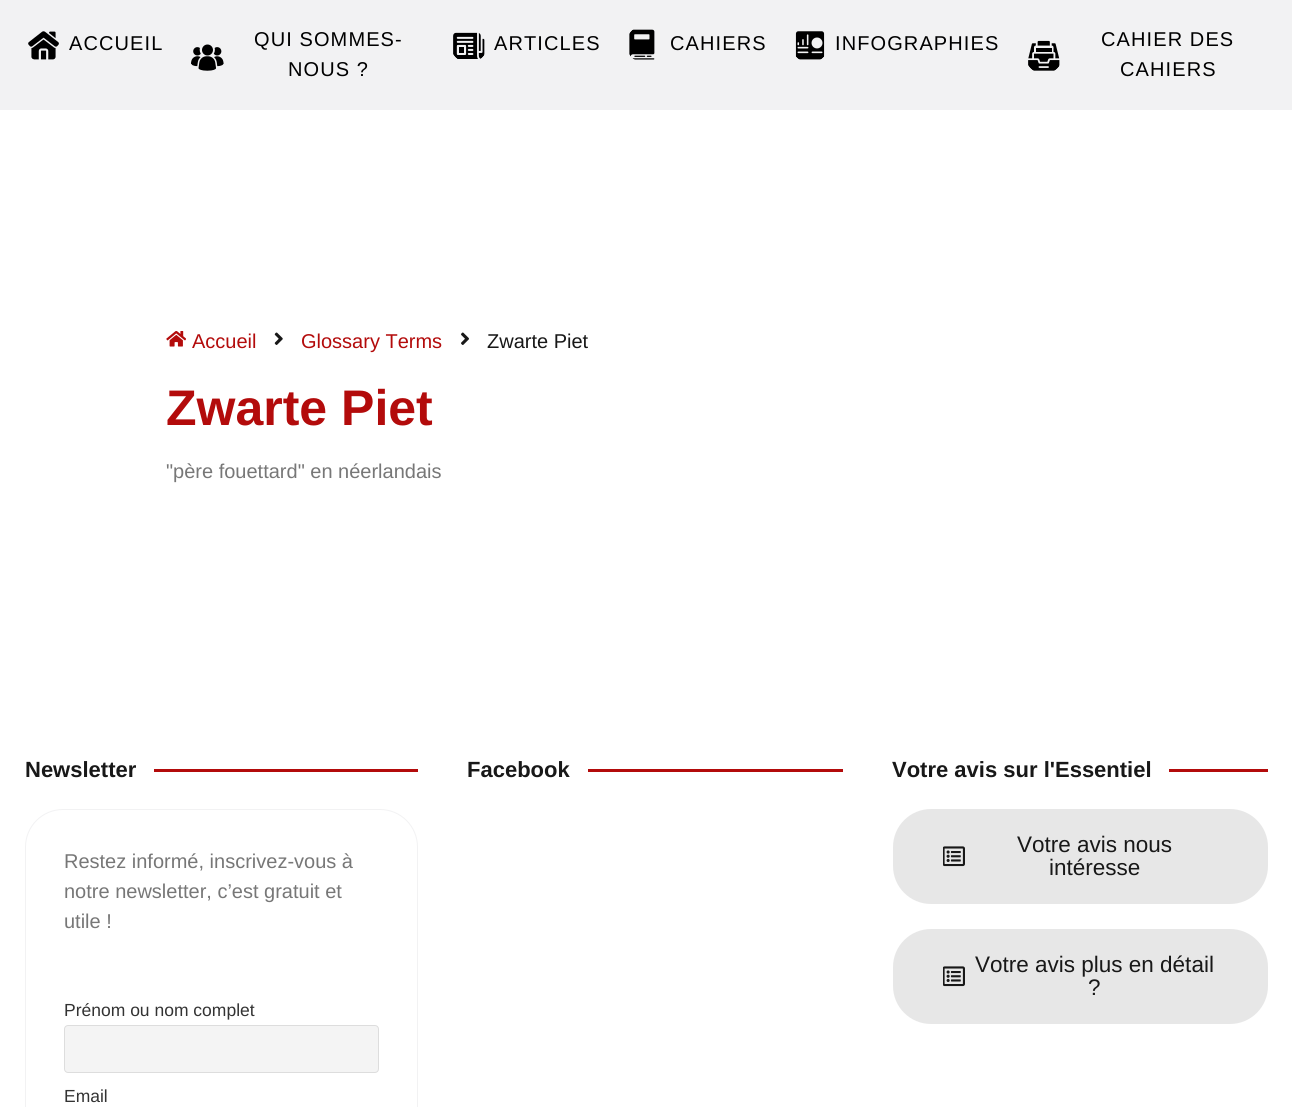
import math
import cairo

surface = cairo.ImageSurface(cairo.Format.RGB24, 1292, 1107)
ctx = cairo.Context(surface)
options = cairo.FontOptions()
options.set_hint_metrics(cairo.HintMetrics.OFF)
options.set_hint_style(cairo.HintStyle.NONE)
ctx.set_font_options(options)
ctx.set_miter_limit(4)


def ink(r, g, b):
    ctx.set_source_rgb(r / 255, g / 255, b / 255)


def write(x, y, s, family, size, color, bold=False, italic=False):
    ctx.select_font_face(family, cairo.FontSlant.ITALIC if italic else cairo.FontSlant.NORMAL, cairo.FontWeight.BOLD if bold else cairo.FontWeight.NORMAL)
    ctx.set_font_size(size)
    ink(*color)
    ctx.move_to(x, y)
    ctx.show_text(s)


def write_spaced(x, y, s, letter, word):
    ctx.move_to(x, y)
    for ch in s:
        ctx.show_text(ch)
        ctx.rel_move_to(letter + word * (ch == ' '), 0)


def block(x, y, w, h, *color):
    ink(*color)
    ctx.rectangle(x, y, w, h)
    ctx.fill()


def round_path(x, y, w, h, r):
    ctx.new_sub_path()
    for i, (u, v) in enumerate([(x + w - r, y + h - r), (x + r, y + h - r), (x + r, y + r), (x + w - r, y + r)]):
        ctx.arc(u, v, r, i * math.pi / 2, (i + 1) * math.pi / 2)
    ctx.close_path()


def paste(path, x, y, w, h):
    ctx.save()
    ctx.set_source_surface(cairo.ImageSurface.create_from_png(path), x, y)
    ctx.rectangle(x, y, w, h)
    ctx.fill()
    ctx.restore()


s1 = dict(family="Liberation Sans", size=20, color=(179, 11, 11))
s2 = dict(family="Liberation Sans", size=20, color=(24, 24, 24))
s3 = dict(family="Liberation Sans", size=50, color=(179, 11, 11), bold=True)
s4 = dict(family="Liberation Sans", size=20, color=(119, 119, 119))
s5 = dict(family="Liberation Sans", size=22, color=(24, 24, 24), bold=True)
s6 = dict(family="Liberation Sans", size=17.5, color=(51, 51, 51))
s7 = dict(family="Liberation Sans", size=22.5, color=(24, 24, 24))

ink(255, 255, 255)
ctx.paint()
block(0, 0, 1292, 110, 242, 242, 243)
paste("pic1.png", 28, 31, 31, 29)
ctx.select_font_face("Liberation Sans")
ctx.set_font_size(20)
ink(0, 0, 0)
write_spaced(69, 50, "ACCUEIL", 1.1, 0)
write_spaced(254, 46, "QUI SOMMES-", 1.1, 0)
paste("pic2.png", 191, 44, 33, 27)
write_spaced(288, 76, "NOUS ?", 1.1, 0)
paste("pic3.png", 453, 32, 32, 27)
write_spaced(494, 50, "ARTICLES", 1.1, 0)
paste("pic4.png", 629, 29, 26, 31)
write_spaced(670, 50, "CAHIERS", 1.1, 0)
paste("pic5.png", 795, 31, 30, 29)
write_spaced(835, 50, "INFOGRAPHIES", 1.1, 0)
paste("pic6.png", 1028, 40, 32, 31)
write_spaced(1101, 46, "CAHIER DES", 1.1, 0)
write_spaced(1120, 76, "CAHIERS", 1.1, 0)
paste("pic7.png", 166, 331, 20, 16)
write(192, 348, "Accueil", **s1)
paste("pic8.png", 274, 332, 9, 13)
write(301, 348, "Glossary Terms", **s1)
paste("pic9.png", 461, 332, 8, 13)
write(487, 348, "Zwarte Piet", **s2)
write(166, 425, "Zwarte Piet", **s3)
write(166, 478, "\"père fouettard\" en néerlandais", **s4)
write(25, 777, "Newsletter", **s5)
block(154, 769, 264, 3, 179, 11, 11)
round_path(25.5, 809.5, 392, 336, 37.5)
ink(242, 242, 243)
ctx.set_line_width(1)
ctx.stroke()
write(64, 868, "Restez informé, inscrivez-vous à", **s4)
write(64, 898, "notre newsletter, c’est gratuit et", **s4)
write(64, 928, "utile !", **s4)
write(64, 1016, "Prénom ou nom complet", **s6)
ink(244, 244, 244)
round_path(64.5, 1025.5, 314, 47, 3.5)
ctx.fill_preserve()
ink(221, 221, 221)
ctx.stroke()
write(64, 1102, "Email", **s6)
write(467, 777, "Facebook", **s5)
block(588, 769, 255, 3, 179, 11, 11)
write(892, 777, "Votre avis sur l'Essentiel", **s5)
block(1169, 769, 99, 3, 179, 11, 11)
ink(231, 231, 231)
round_path(893, 809, 375, 95, 38)
ctx.fill()
paste("pic10.png", 943, 846, 22, 21)
write(1017, 852, "Votre avis nous", **s7)
write(1049, 875, "intéresse", **s7)
ink(231, 231, 231)
round_path(893, 929, 375, 95, 38)
ctx.fill()
paste("pic10.png", 943, 966, 22, 21)
write(975, 972, "Votre avis plus en détail", **s7)
write(1088, 995, "?", **s7)
surface.write_to_png("screenshot.png")
